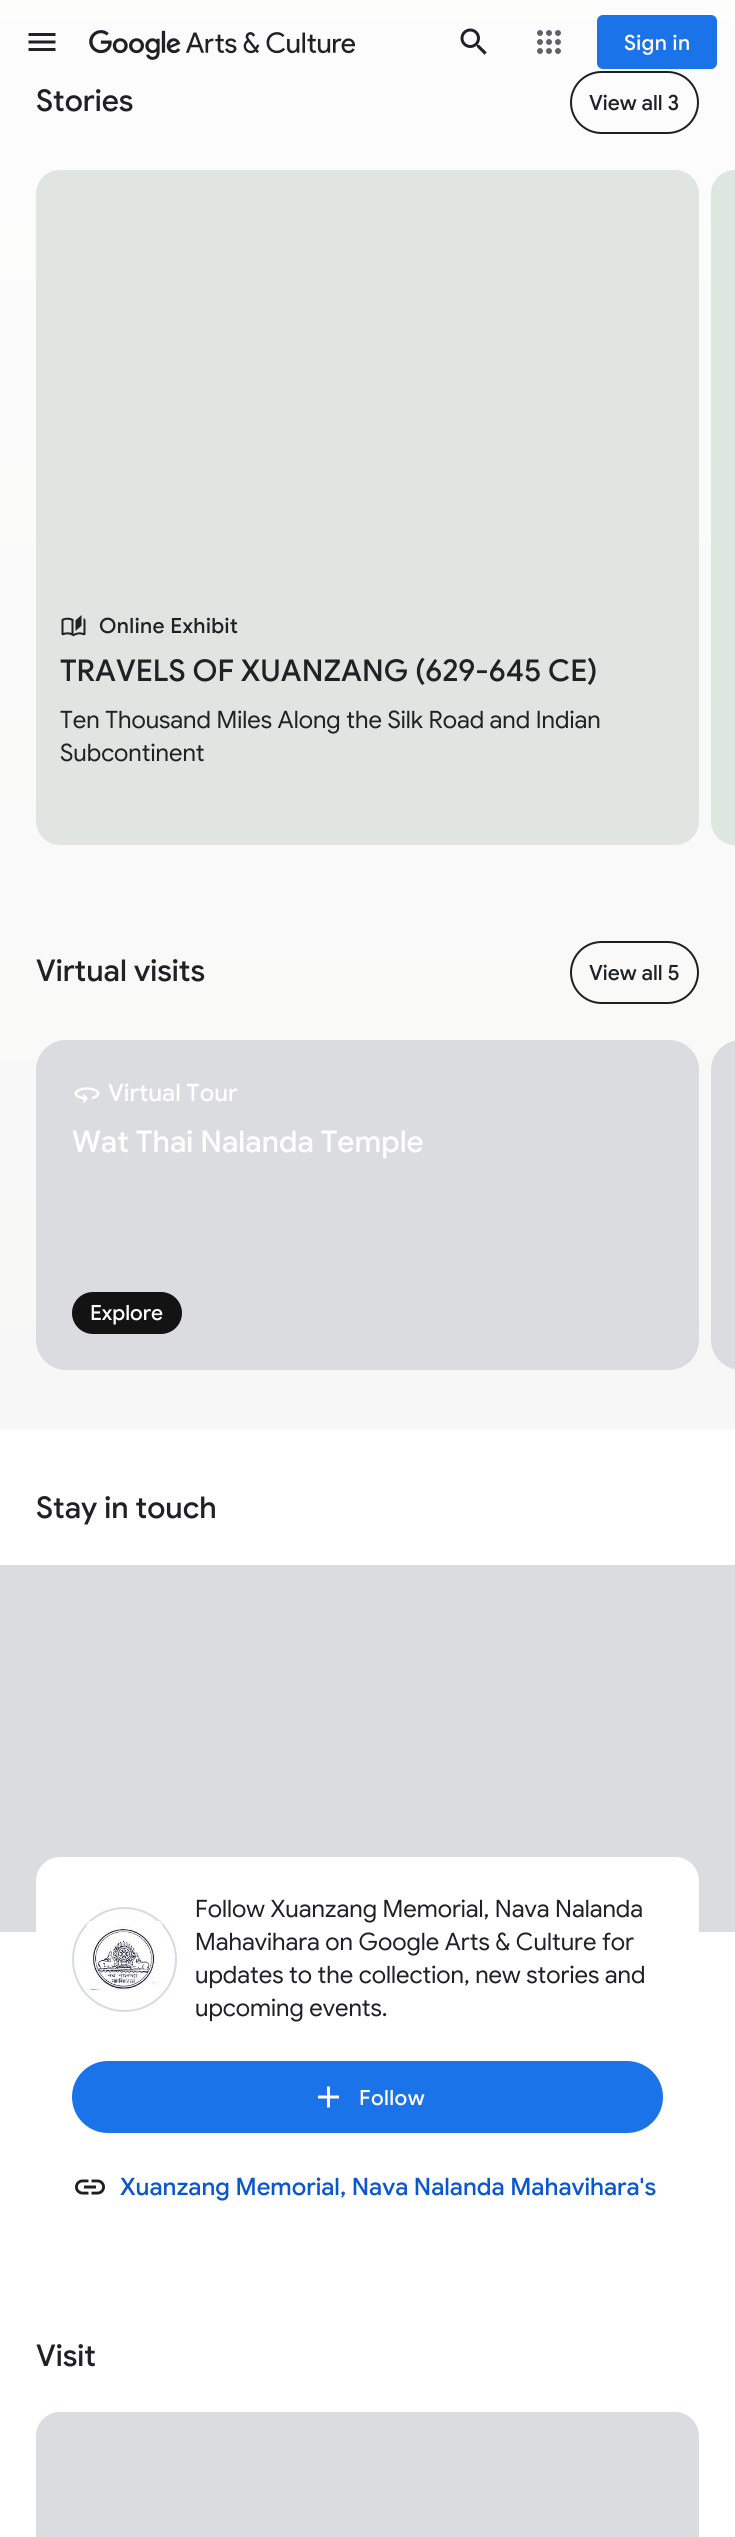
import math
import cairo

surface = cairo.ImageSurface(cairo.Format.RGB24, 735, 2537)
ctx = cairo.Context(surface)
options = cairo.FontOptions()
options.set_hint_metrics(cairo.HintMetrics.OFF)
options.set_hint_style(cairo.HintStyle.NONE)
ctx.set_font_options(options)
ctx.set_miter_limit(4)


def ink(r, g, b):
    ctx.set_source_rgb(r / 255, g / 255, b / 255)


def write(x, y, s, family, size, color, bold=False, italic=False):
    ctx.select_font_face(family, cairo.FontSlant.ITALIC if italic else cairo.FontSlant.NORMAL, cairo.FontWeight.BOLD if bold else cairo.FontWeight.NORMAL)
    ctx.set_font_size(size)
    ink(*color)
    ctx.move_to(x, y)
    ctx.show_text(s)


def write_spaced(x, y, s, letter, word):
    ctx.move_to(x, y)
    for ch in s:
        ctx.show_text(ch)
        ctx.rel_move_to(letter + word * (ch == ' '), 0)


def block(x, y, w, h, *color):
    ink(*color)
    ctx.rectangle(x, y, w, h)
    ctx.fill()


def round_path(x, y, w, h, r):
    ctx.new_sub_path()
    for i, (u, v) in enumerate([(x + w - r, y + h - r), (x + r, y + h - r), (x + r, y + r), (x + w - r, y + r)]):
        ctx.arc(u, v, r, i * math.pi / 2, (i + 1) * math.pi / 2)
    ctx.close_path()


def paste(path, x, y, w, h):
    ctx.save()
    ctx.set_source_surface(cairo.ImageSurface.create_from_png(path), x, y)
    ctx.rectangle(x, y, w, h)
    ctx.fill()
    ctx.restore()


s1 = dict(family="Google Sans Medium", size=30, color=(32, 33, 36))
s2 = dict(family="Google Sans Medium", size=21, color=(32, 33, 36))
s3 = dict(family="Google Sans", size=24, color=(32, 33, 36))
s4 = dict(family="Google Sans Medium", size=24, color=(255, 255, 255))
s5 = dict(family="Google Sans Medium", size=30, color=(255, 255, 255))
s6 = dict(family="Google Sans Medium", size=21, color=(255, 255, 255))
s7 = dict(family="Google Sans Medium", size=24, color=(11, 87, 208))

ink(255, 255, 255)
ctx.paint()
gradient = cairo.LinearGradient(367, -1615, 368, 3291)
gradient.add_color_stop_rgba(0, 0.945, 0.941, 0.937, 1)
gradient.add_color_stop_rgba(0.2, 1, 1, 1, 1)
gradient.add_color_stop_rgba(1, 0.945, 0.941, 0.937, 1)
ctx.set_source(gradient)
ctx.rectangle(0, 0, 735, 1430)
ctx.fill()
paste("pic1.png", 28, 33, 28, 18)
paste("pic2.png", 89, 30, 267, 30)
paste("pic3.png", 460, 28, 27, 27)
paste("pic4.png", 537, 30, 24, 24)
ink(26, 115, 232)
round_path(597, 15, 120, 54, 6)
ctx.fill()
ctx.select_font_face("Google Sans Medium")
ctx.set_font_size(21)
ink(255, 255, 255)
write_spaced(624, 50, "Sign in", 0.4, 0)
write(36, 111, "Stories", **s1)
round_path(571, 72, 127, 61, 30.5)
ink(31, 31, 31)
ctx.stroke()
write(589, 110, "View all 3", **s2)
ink(224, 229, 225)
round_path(36, 170, 663, 675, 24)
ctx.fill()
paste("pic5.png", 61, 615, 25, 22)
ink(32, 33, 36)
write_spaced(99, 633, "Online Exhibit", 0.4, 0)
write(60, 681, "TRAVELS OF XUANZANG (629-645 CE)", **s1)
write(60, 728, "Ten Thousand Miles Along the Silk Road and Indian", **s3)
write(60, 761, "Subcontinent", **s3)
ink(220, 232, 223)
ctx.new_path()
ctx.move_to(735, 170)
ctx.line_to(735, 845)
ctx.curve_to(721.5, 845, 711, 834.5, 711, 821)
ctx.line_to(711, 194)
ctx.curve_to(711, 180.5, 721.5, 170, 735, 170)
ctx.close_path()
ctx.fill()
write(36, 981, "Virtual visits", **s1)
round_path(571, 942, 127, 61, 30.5)
ink(31, 31, 31)
ctx.stroke()
write(589, 980, "View all 5", **s2)
ink(218, 220, 224)
round_path(36, 1040, 663, 330, 30)
ctx.fill()
paste("pic6.png", 74, 1087, 26, 17)
write(108, 1101, "Virtual Tour", **s4)
write(72, 1152, "Wat Thai Nalanda Temple", **s5)
ink(19, 19, 20)
round_path(72, 1292, 110, 42, 21)
ctx.fill()
write(90, 1320, "Explore", **s6)
ink(218, 220, 224)
ctx.new_path()
ctx.move_to(741, 1040)
ctx.line_to(735, 1040)
ctx.line_to(735, 1370)
ctx.line_to(741, 1370)
ctx.curve_to(724.5, 1370, 711, 1356.5, 711, 1340)
ctx.line_to(711, 1070)
ctx.curve_to(711, 1053.5, 724.5, 1040, 741, 1040)
ctx.close_path()
ctx.fill()
write(36, 1518, "Stay in touch", **s1)
block(0, 1565, 735, 367, 218, 220, 224)
ink(255, 255, 255)
round_path(36, 1857, 663, 384, 24)
ctx.fill()
ctx.arc(124.5, 1959.5, 51.5, 0, 2 * math.pi)
ink(211, 219, 229)
ctx.stroke()
paste("pic7.png", 87, 1921, 75, 75)
write(195, 1917, "Follow Xuanzang Memorial, Nava Nalanda", **s3)
write(195, 1950, "Mahavihara on Google Arts & Culture for", **s3)
write(195, 1983, "updates to the collection, new stories and", **s3)
write(195, 2016, "upcoming events.", **s3)
ink(26, 115, 232)
round_path(72, 2061, 591, 72, 36)
ctx.fill()
paste("pic8.png", 318, 2086, 21, 22)
ctx.select_font_face("Google Sans Medium")
ctx.set_font_size(21)
ink(255, 255, 255)
write_spaced(359, 2105, "Follow", 0.4, 0)
paste("pic9.png", 75, 2179, 30, 16)
write(120, 2195, "Xuanzang Memorial, Nava Nalanda Mahavihara's", **s7)
write(36, 2366, "Visit", **s1)
ink(218, 220, 224)
round_path(36, 2412, 663, 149, 24)
ctx.fill()
surface.write_to_png("screenshot.png")
